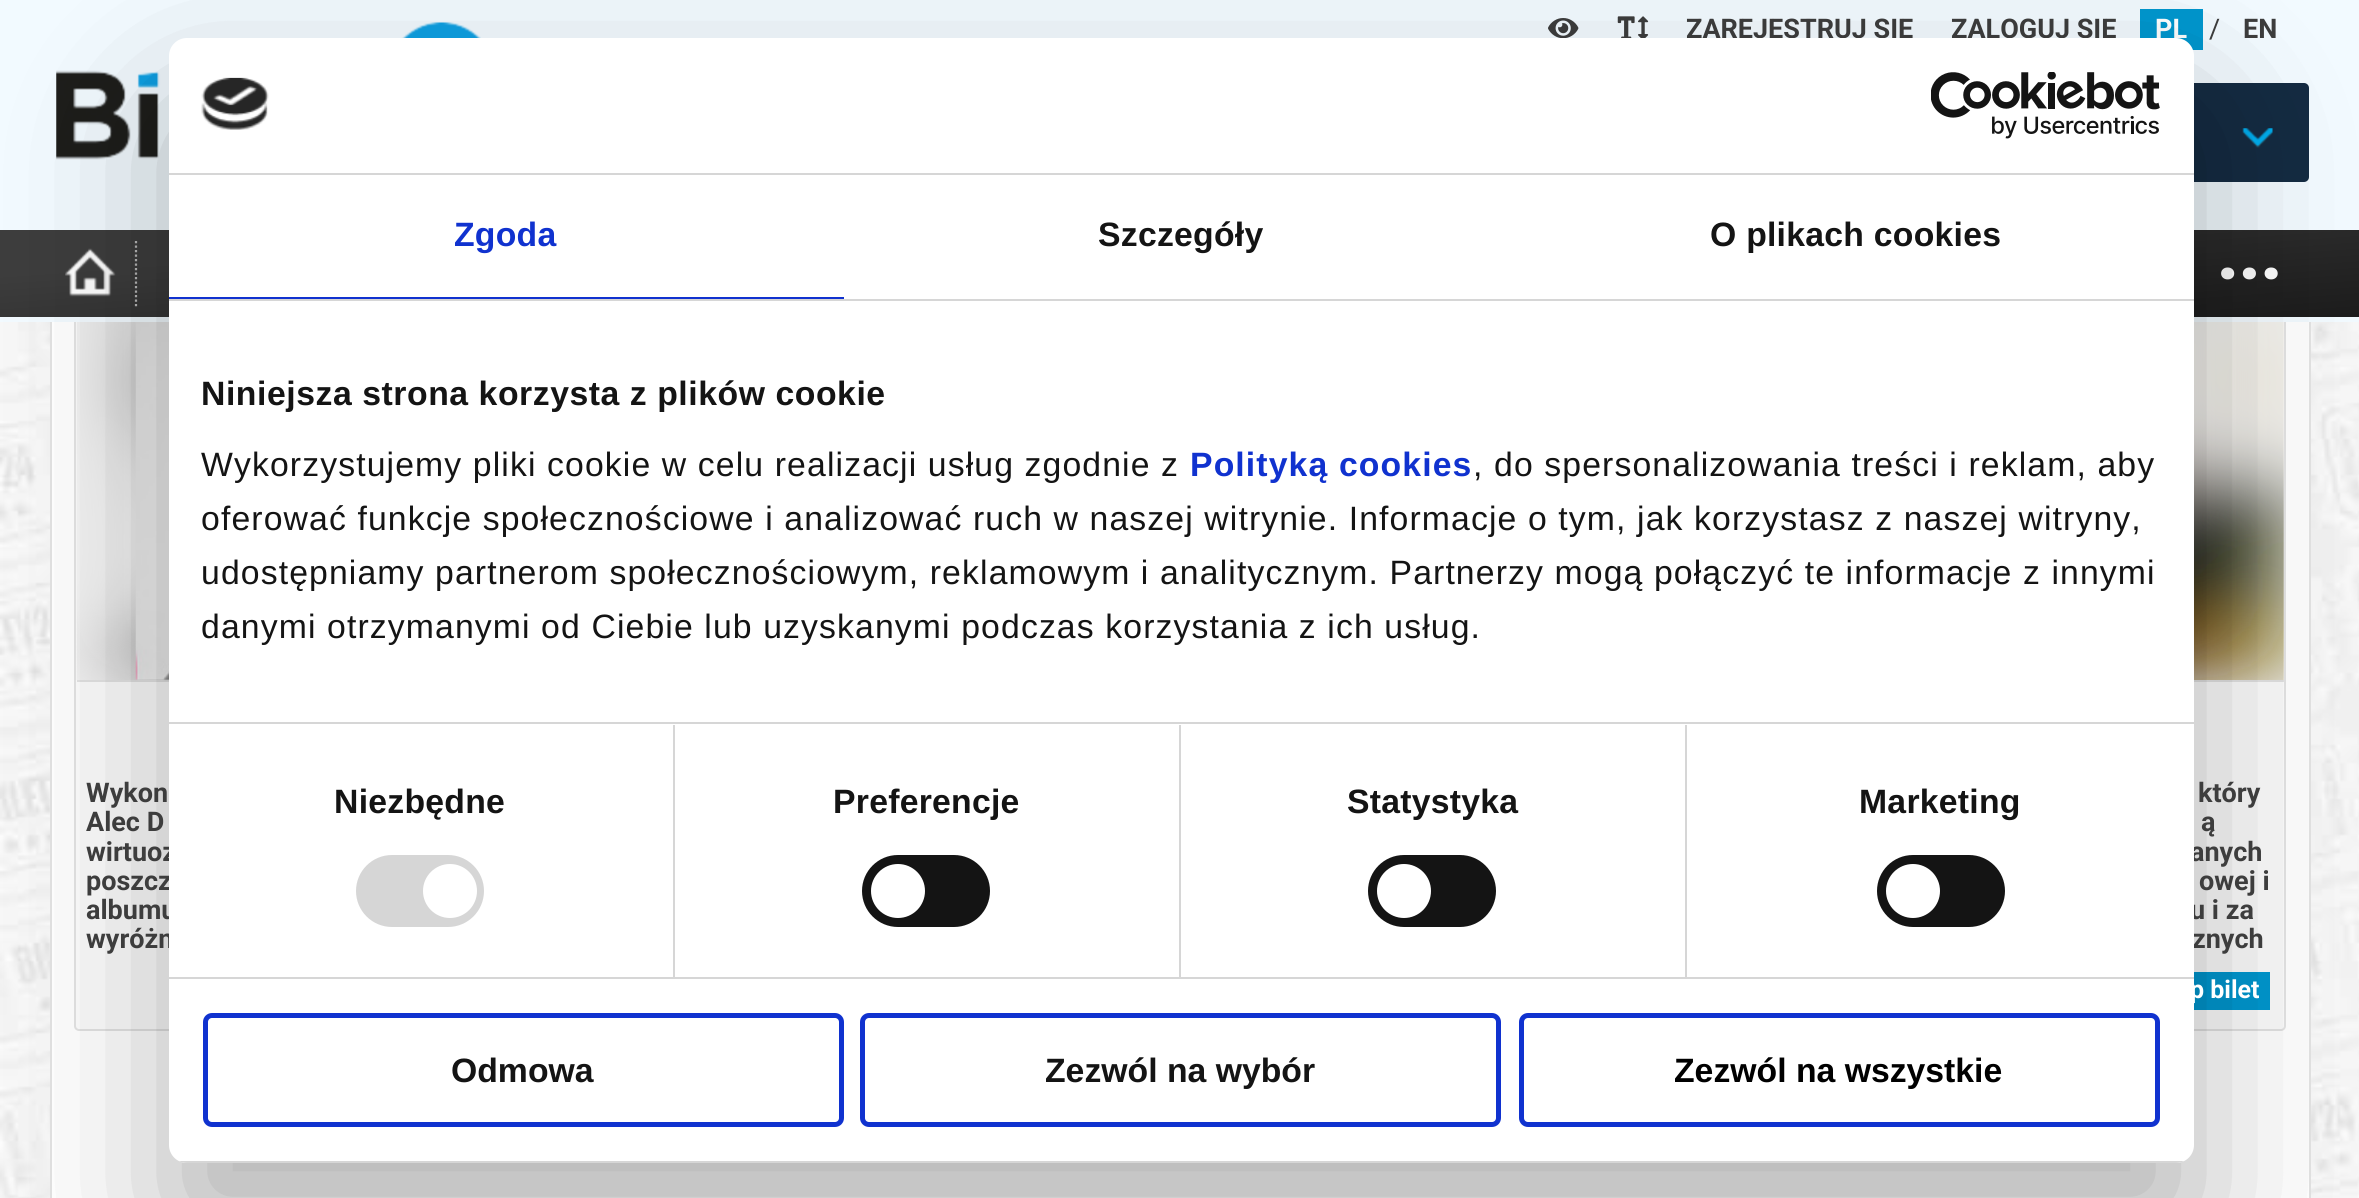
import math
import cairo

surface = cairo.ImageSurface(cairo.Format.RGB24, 2359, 1198)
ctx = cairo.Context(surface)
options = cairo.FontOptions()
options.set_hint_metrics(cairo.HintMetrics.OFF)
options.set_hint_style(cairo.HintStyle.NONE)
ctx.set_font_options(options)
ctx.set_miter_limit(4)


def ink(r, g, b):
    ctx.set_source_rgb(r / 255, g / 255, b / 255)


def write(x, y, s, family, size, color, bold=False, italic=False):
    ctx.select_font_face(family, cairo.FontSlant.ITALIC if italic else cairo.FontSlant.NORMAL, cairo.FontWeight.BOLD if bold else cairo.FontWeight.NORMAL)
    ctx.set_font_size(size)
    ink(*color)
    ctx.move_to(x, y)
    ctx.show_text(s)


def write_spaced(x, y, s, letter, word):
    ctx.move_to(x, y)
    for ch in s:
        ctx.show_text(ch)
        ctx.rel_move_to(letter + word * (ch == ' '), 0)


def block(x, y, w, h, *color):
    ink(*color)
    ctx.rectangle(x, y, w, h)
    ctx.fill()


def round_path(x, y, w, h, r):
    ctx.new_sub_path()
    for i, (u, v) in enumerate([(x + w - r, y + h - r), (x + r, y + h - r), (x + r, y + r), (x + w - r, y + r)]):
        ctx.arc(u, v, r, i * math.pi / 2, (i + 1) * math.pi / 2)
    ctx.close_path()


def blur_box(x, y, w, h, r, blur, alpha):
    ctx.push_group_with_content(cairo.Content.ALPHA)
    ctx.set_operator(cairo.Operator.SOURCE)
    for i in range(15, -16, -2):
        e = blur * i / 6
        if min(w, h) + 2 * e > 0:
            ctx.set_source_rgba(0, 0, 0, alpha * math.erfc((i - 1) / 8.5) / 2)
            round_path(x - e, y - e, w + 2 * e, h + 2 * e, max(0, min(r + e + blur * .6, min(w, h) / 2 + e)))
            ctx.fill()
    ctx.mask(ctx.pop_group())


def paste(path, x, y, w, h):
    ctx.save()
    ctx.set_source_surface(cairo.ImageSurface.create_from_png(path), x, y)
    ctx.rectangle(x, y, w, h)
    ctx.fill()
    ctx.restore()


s1 = dict(family="Roboto", size=27, color=(61, 61, 61), bold=True)
s2 = dict(family="Roboto", size=27, color=(255, 255, 255), bold=True)
s3 = dict(family="Roboto", size=27, color=(61, 61, 61))
s4 = dict(family="Roboto Black", size=72, color=(255, 255, 255))
s5 = dict(family="Liberation Sans", size=33.75, color=(20, 20, 20), bold=True)
s6 = dict(family="Liberation Sans", size=33.75, color=(0, 0, 0), bold=True)
s7 = dict(family="Roboto", size=25, color=(255, 255, 255), bold=True)

ink(255, 255, 255)
ctx.paint()
paste("pic1.png", 0, 322, 2359, 876)
block(52, 322, 2257, 876, 255, 255, 255)
ctx.rectangle(51, -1, 2259, 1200)
ink(226, 226, 226)
ctx.stroke()
ink(252, 252, 252)
round_path(75, 228, 721, 802, 4)
ctx.fill_preserve()
ink(226, 226, 226)
ctx.stroke()
ink(252, 252, 252)
round_path(1565, 228, 720, 802, 4)
ctx.fill_preserve()
ink(226, 226, 226)
ctx.stroke()
block(0, 0, 2359, 322, 242, 250, 255)
paste("pic2.png", 56, 22, 425, 138)
paste("pic3.png", 1548, 18, 31, 20)
paste("pic4.png", 1617, 16, 32, 22)
write(1686, 38, "ZAREJESTRUJ SIĘ", **s1)
write(1951, 38, "ZALOGUJ SIĘ", **s1)
block(2140, 9, 63, 41, 0, 151, 207)
write(2155, 38, "PL", **s2)
write(2209, 38, "/", **s3)
write(2243, 38, "EN", **s1)
ink(20, 43, 66)
round_path(1517, 83, 792, 99, 5)
ctx.fill()
paste("pic5.png", 2242, 128, 31, 20)
gradient = cairo.LinearGradient(1171, 148, 1189, 399)
gradient.add_color_stop_rgba(0.17, 0.239, 0.239, 0.239, 1)
gradient.add_color_stop_rgba(1, 0.11, 0.11, 0.11, 1)
ctx.set_source(gradient)
ctx.rectangle(0, 230, 2359, 87)
ctx.fill()
paste("pic6.png", 65, 248, 51, 49)
ctx.new_path()
ctx.move_to(136, 241)
ctx.line_to(136, 308)
ink(184, 184, 184)
ctx.set_line_width(2.2)
ctx.set_dash([2.25, 2.25])
ctx.stroke()
write(2217, 279, "...", **s4)
block(77, 680, 92, 2, 226, 226, 226)
paste("pic9.png", 76, 322, 93, 358)
paste("pic10.png", 135, 322, 34, 359)
block(2194, 680, 90, 2, 226, 226, 226)
paste("pic11.png", 2194, 322, 90, 358)
block(2194, 972, 76, 38, 0, 151, 207)
ink(0, 0, 0)
blur_box(169, 110, 2025, 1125, 18, 76.5, 0.3)
write(86, 861, "wirtuoz", **s1)
write(86, 890, "poszcz", **s1)
write(86, 919, "albumu", **s1)
write(86, 948, "wyróżn", **s1)
write(2190, 861, "anych", **s1)
write(2190, 919, "u i za", **s1)
write(2192, 948, "znych", **s1)
ink(255, 255, 255)
round_path(169, 38, 2025, 1125, 18)
ctx.fill()
block(169, 173, 2025, 2, 214, 214, 214)
paste("pic7.png", 201, 77, 68, 53)
paste("pic8.png", 1931, 72, 229, 67)
block(169, 299, 2025, 2, 214, 214, 214)
block(169, 297, 675, 2, 16, 50, 207)
ctx.select_font_face("Liberation Sans", cairo.FontSlant.NORMAL, cairo.FontWeight.BOLD)
ctx.set_font_size(33.75)
write_spaced(454, 246, "Zgoda", 0.25, 0)
ink(20, 20, 20)
write_spaced(1098, 246, "Szczegóły", 0.25, 0)
write_spaced(1710, 246, "O plikach cookies", 0.25, 0)
block(169, 722, 2025, 2, 214, 214, 214)
ink(20, 20, 20)
write_spaced(201, 405, "Niniejsza strona korzysta z plików cookie", 0.55, 0)
ctx.select_font_face("Liberation Sans")
write_spaced(201, 476, "Wykorzystujemy pliki cookie w celu realizacji usług zgodnie z", 1.12, 0)
ctx.select_font_face("Liberation Sans", cairo.FontSlant.NORMAL, cairo.FontWeight.BOLD)
ink(16, 50, 207)
write_spaced(1190, 476, "Polityką cookies", 1.12, 0)
ctx.select_font_face("Liberation Sans")
ink(20, 20, 20)
write_spaced(1473, 476, ", do spersonalizowania treści i reklam, aby", 1.12, 0)
write_spaced(201, 530, "oferować funkcje społecznościowe i analizować ruch w naszej witrynie. Informacje o tym, jak korzystasz z naszej witryny,", 1.12, 0)
write_spaced(201, 584, "udostępniamy partnerom społecznościowym, reklamowym i analitycznym. Partnerzy mogą połączyć te informacje z innymi", 1.12, 0)
write_spaced(201, 638, "danymi otrzymanymi od Ciebie lub uzyskanymi podczas korzystania z ich usług.", 1.12, 0)
block(169, 977, 2025, 2, 214, 214, 214)
block(673, 725, 2, 252, 214, 214, 214)
ctx.select_font_face("Liberation Sans", cairo.FontSlant.NORMAL, cairo.FontWeight.BOLD)
ink(20, 20, 20)
write_spaced(334, 813, "Niezbędne", 0.25, 0)
ink(214, 214, 214)
round_path(356, 855, 128, 72, 36)
ctx.fill()
ink(255, 255, 255)
ctx.arc(450, 891, 27, 0, 2 * math.pi)
ctx.fill()
block(1179, 725, 2, 252, 214, 214, 214)
ink(20, 20, 20)
write_spaced(833, 813, "Preferencje", 0.25, 0)
round_path(862, 855, 128, 72, 36)
ctx.fill()
ink(255, 255, 255)
ctx.arc(898, 891, 27, 0, 2 * math.pi)
ctx.fill()
block(1685, 725, 2, 252, 214, 214, 214)
ink(20, 20, 20)
write_spaced(1347, 813, "Statystyka", 0.25, 0)
round_path(1368, 855, 128, 72, 36)
ctx.fill()
ink(255, 255, 255)
ctx.arc(1404, 891, 27, 0, 2 * math.pi)
ctx.fill()
ink(20, 20, 20)
write_spaced(1859, 813, "Marketing", 0.25, 0)
round_path(1877, 855, 128, 72, 36)
ctx.fill()
ink(255, 255, 255)
ctx.arc(1913, 891, 27, 0, 2 * math.pi)
ctx.fill()
ctx.save()
round_path(169, 38, 2025, 1125, 18)
ctx.clip()
block(179, 1161, 2005, 2, 214, 214, 214)
ctx.restore()
round_path(205.5, 1015.5, 636, 109, 6.5)
ink(16, 50, 207)
ctx.set_line_width(5)
ctx.set_dash([])
ctx.stroke()
write(451, 1082, "Odmowa", **s5)
round_path(862.5, 1015.5, 636, 109, 6.5)
ink(16, 50, 207)
ctx.stroke()
write(1045, 1082, "Zezwól na wybór", **s5)
round_path(1521.5, 1015.5, 636, 109, 6.5)
ink(16, 50, 207)
ctx.stroke()
write(1674, 1082, "Zezwól na wszystkie", **s6)
write(86, 802, "Wykon", **s1)
write(86, 831, "Alec D", **s1)
write(2198, 802, "który", **s1)
write(2201, 831, "ą", **s1)
write(2199, 890, "owej i", **s1)
write(2190, 998, "p bilet", **s7)
surface.write_to_png("screenshot.png")
